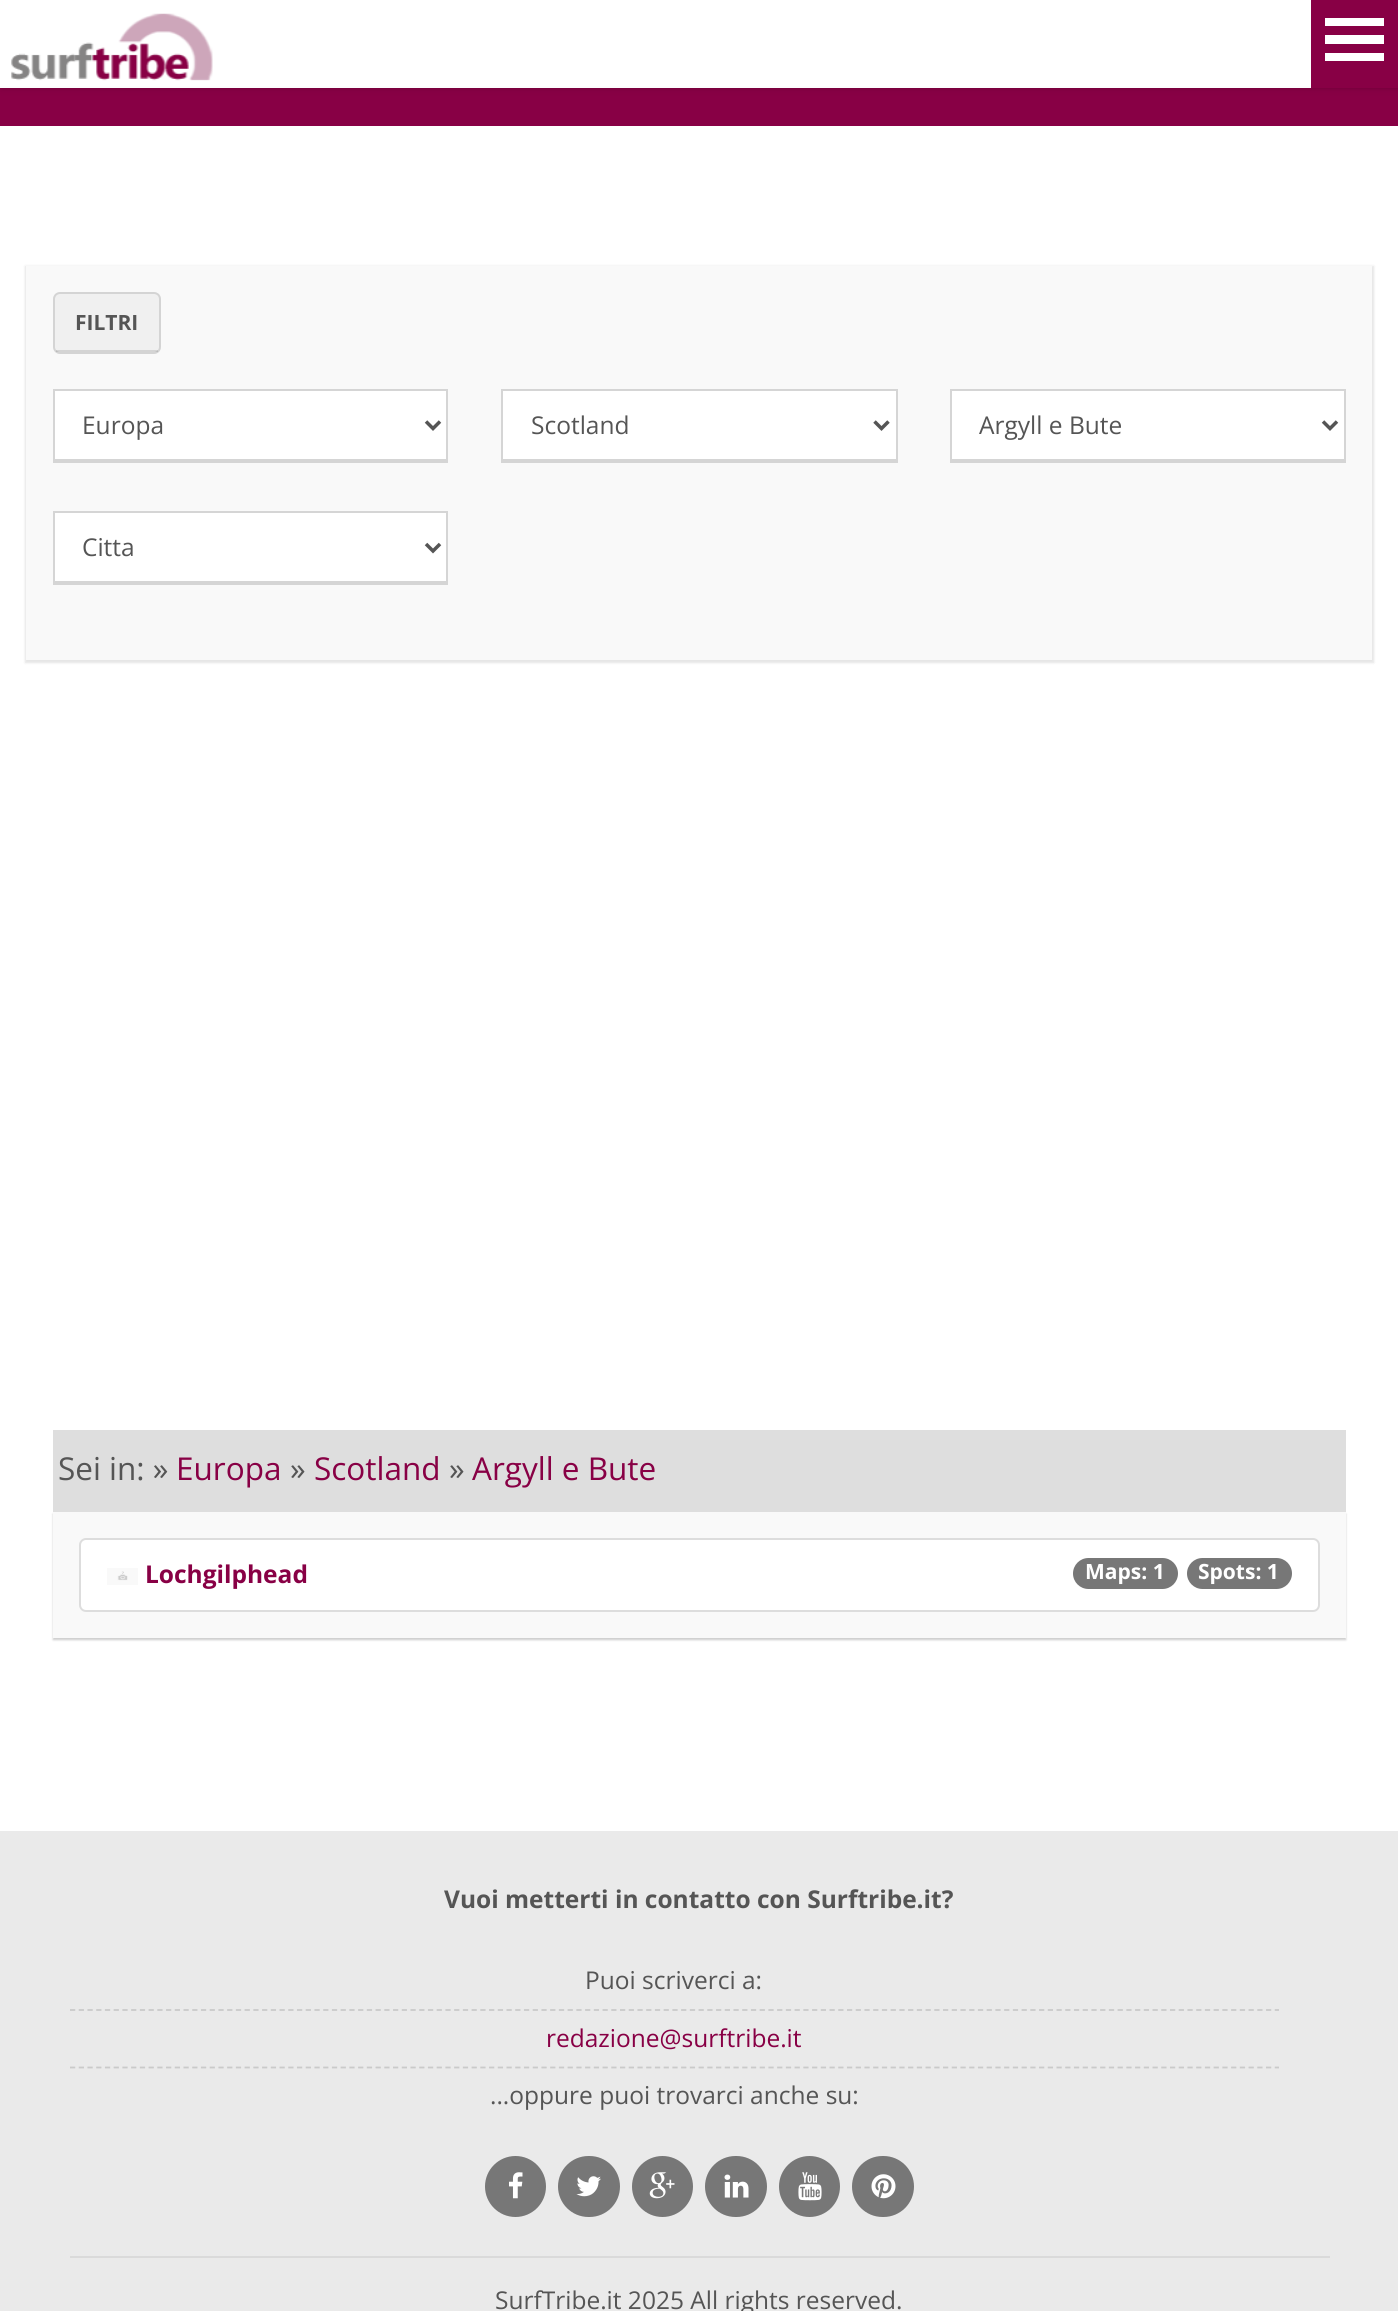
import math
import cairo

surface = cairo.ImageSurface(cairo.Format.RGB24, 1398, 2311)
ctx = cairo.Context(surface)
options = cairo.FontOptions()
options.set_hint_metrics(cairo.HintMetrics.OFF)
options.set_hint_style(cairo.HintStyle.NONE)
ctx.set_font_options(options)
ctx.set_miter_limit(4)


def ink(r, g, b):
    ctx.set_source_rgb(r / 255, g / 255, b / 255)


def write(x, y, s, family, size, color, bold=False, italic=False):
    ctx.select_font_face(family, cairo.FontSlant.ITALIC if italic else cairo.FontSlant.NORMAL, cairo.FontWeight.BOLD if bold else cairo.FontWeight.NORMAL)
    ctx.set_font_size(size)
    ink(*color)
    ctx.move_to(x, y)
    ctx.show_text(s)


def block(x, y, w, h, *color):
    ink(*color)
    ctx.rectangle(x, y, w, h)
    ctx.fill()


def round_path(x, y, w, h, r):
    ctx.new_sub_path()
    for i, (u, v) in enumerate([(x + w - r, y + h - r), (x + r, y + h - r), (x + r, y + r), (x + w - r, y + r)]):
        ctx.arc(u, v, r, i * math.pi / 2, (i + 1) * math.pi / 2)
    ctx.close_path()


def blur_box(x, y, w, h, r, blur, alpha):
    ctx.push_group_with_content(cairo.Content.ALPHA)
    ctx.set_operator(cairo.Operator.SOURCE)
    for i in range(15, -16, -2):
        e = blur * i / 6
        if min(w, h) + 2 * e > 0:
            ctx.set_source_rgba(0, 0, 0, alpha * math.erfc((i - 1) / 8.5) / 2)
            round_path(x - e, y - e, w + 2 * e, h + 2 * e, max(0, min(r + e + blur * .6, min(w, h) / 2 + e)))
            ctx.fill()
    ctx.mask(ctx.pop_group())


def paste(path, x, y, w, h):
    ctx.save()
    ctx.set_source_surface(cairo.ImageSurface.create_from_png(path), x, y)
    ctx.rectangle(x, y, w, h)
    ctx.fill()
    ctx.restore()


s1 = dict(family="Open Sans", size=21, color=(85, 85, 85), bold=True)
s2 = dict(family="Open Sans", size=24.5, color=(85, 85, 85))
s3 = dict(family="Open Sans", size=31.5, color=(85, 85, 85))
s4 = dict(family="Open Sans", size=31.5, color=(136, 0, 69))
s5 = dict(family="Open Sans", size=24.5, color=(136, 0, 69), bold=True)
s6 = dict(family="Open Sans", size=21, color=(255, 255, 255), bold=True)
s7 = dict(family="Open Sans", size=24.5, color=(85, 85, 85), bold=True)
s8 = dict(family="Open Sans", size=24.5, color=(136, 0, 69))

ink(255, 255, 255)
ctx.paint()
block(0, 88, 1398, 38, 136, 0, 69)
ink(0, 0, 0)
blur_box(0, 2, 1398, 87, 0, 4.5, 0.05)
block(0, 0, 1311, 86, 255, 255, 255)
block(0, 86, 1311, 2, 221, 221, 221)
ctx.save()
ctx.set_fill_rule(cairo.FillRule.EVEN_ODD)
ctx.new_path()
ctx.move_to(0, 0)
ctx.line_to(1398, 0)
ctx.line_to(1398, 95)
ctx.line_to(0, 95)
ctx.close_path()
ctx.move_to(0, 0)
ctx.line_to(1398, 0)
ctx.line_to(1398, 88)
ctx.line_to(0, 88)
ctx.close_path()
ctx.clip()
ink(0, 0, 0)
blur_box(2, 0, 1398, 88, 0, 2, 0.2)
ctx.restore()
ctx.set_source_rgba(1, 1, 1, 0.95)
ctx.rectangle(0, 86, 1311, 2)
ctx.fill()
block(1311, 0, 87, 88, 136, 0, 69)
block(1325, 53, 59, 8, 255, 255, 255)
block(1325, 35, 59, 9, 255, 255, 255)
block(1325, 18, 59, 8, 255, 255, 255)
paste("pic1.png", 11, 13, 202, 68)
ink(0, 0, 0)
blur_box(25, 266, 1349, 397, 0, 1, 0.1)
block(26, 266, 1346, 394, 249, 249, 249)
ink(240, 240, 240)
round_path(53, 292, 108, 62, 7)
ctx.fill()
round_path(54, 293, 106, 60, 6)
ctx.set_source_rgba(0, 0, 0, 0.12)
ctx.stroke()
ctx.rectangle(56, 350, 102, 2)
ctx.fill()
write(75, 330, "FILTRI", **s1)
block(55, 391, 391, 68, 255, 255, 255)
block(53, 389, 395, 2, 213, 213, 213)
block(446, 389, 2, 73, 213, 213, 213)
block(53, 459, 395, 4, 213, 213, 213)
block(53, 389, 2, 73, 213, 213, 213)
ctx.new_path()
ctx.move_to(426, 421.5)
ctx.line_to(433, 428.5)
ctx.line_to(440, 421.5)
ink(85, 85, 85)
ctx.set_line_width(3.5)
ctx.stroke()
write(82, 434, "Europa", **s2)
block(503, 391, 393, 68, 255, 255, 255)
block(501, 389, 397, 2, 213, 213, 213)
block(896, 389, 2, 73, 213, 213, 213)
block(501, 459, 397, 4, 213, 213, 213)
block(501, 389, 2, 73, 213, 213, 213)
ctx.new_path()
ctx.move_to(874.5, 421.5)
ctx.line_to(881.5, 428.5)
ctx.line_to(888.5, 421.5)
ink(85, 85, 85)
ctx.stroke()
write(531, 434, "Scotland", **s2)
block(952, 391, 392, 68, 255, 255, 255)
block(950, 389, 396, 2, 213, 213, 213)
block(1344, 389, 2, 73, 213, 213, 213)
block(950, 459, 396, 4, 213, 213, 213)
block(950, 389, 2, 73, 213, 213, 213)
ctx.new_path()
ctx.move_to(1323, 421.5)
ctx.line_to(1330, 428.5)
ctx.line_to(1337, 421.5)
ink(85, 85, 85)
ctx.stroke()
write(979, 434, "Argyll e Bute", **s2)
block(55, 513, 391, 68, 255, 255, 255)
block(53, 511, 395, 2, 213, 213, 213)
block(446, 511, 2, 74, 213, 213, 213)
block(53, 581, 395, 4, 213, 213, 213)
block(53, 511, 2, 74, 213, 213, 213)
ctx.new_path()
ctx.move_to(426, 544)
ctx.line_to(433, 551)
ctx.line_to(440, 544)
ink(85, 85, 85)
ctx.stroke()
write(82, 556, "Citta", **s2)
block(53, 1430, 1293, 82, 222, 222, 222)
write(58, 1480, "Sei in: »", **s3)
write(176, 1480, "Europa", **s4)
write(290, 1480, "»", **s3)
write(314, 1480, "Scotland", **s4)
write(449, 1480, "»", **s3)
write(472, 1480, "Argyll e Bute", **s4)
ink(0, 0, 0)
blur_box(53, 1514, 1293, 126, 0, 1, 0.2)
block(53, 1512, 1293, 126, 249, 249, 249)
ink(255, 255, 255)
round_path(80, 1539, 1239, 72, 6)
ctx.fill_preserve()
ink(221, 221, 221)
ctx.set_line_width(2)
ctx.stroke()
paste("pic2.png", 107, 1568, 31, 17)
write(145, 1583, "Lochgilphead", **s5)
ink(119, 119, 119)
round_path(1073, 1558, 105, 31, 15.5)
ctx.fill()
write(1085, 1579, "Maps: 1", **s6)
ink(119, 119, 119)
round_path(1187, 1558, 105, 31, 15.5)
ctx.fill()
write(1198, 1579, "Spots: 1", **s6)
block(0, 1831, 1398, 480, 234, 234, 234)
write(444, 1908, "Vuoi metterti in contatto con Surftribe.it?", **s7)
ctx.new_path()
ctx.move_to(70, 2010)
ctx.line_to(1279, 2010)
ink(202, 202, 202)
ctx.set_line_width(1.8)
ctx.set_dash([5.25, 3.48])
ctx.stroke()
write(585, 1989, "Puoi scriverci a:", **s2)
ctx.new_path()
ctx.move_to(70, 2067.5)
ctx.line_to(1279, 2067.5)
ink(202, 202, 202)
ctx.stroke()
write(546, 2047, "redazione@surftribe.it", **s8)
write(490, 2104, "...oppure puoi trovarci anche su:", **s2)
ink(119, 119, 119)
ctx.new_path()
ctx.arc(515.5, 2186.5, 30.5, 0, 2 * math.pi)
ctx.fill()
paste("pic3.png", 509, 2172, 14, 27)
round_path(558, 2156, 62, 61, 30.5)
ctx.fill()
paste("pic4.png", 576, 2176, 25, 21)
ctx.arc(662.5, 2186.5, 30.5, 0, 2 * math.pi)
ctx.fill()
paste("pic5.png", 649, 2172, 26, 27)
round_path(705, 2156, 62, 61, 30.5)
ctx.fill()
paste("pic6.png", 724, 2174, 25, 24)
ctx.arc(809.5, 2186.5, 30.5, 0, 2 * math.pi)
ctx.fill()
paste("pic7.png", 798, 2172, 24, 29)
round_path(852, 2156, 62, 61, 30.5)
ctx.fill()
paste("pic8.png", 871, 2174, 25, 25)
block(70, 2256, 1260, 2, 218, 218, 218)
write(495, 2309, "SurfTribe.it 2025 All rights reserved.", **s2)
surface.write_to_png("screenshot.png")
